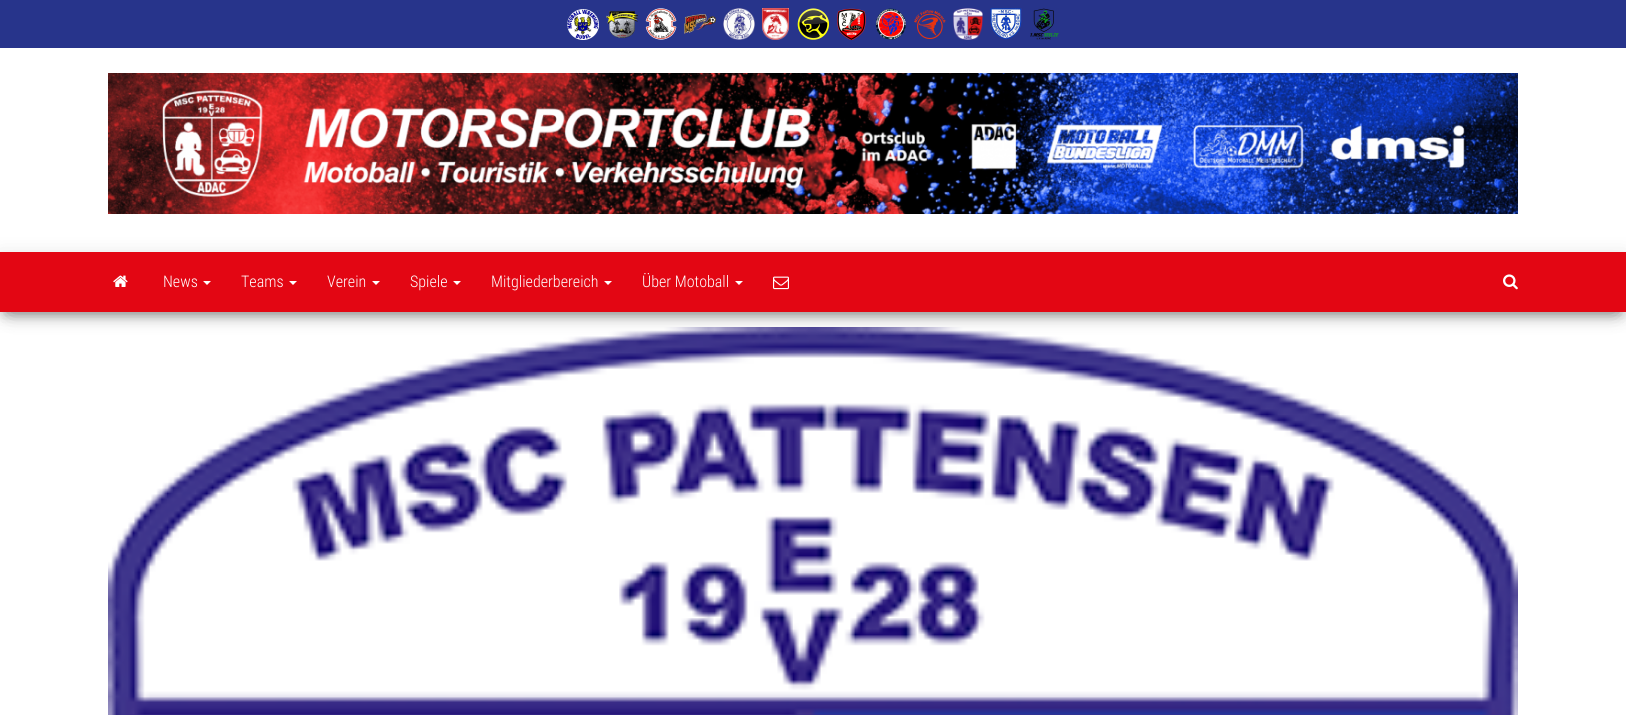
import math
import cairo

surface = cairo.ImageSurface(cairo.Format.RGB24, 1626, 715)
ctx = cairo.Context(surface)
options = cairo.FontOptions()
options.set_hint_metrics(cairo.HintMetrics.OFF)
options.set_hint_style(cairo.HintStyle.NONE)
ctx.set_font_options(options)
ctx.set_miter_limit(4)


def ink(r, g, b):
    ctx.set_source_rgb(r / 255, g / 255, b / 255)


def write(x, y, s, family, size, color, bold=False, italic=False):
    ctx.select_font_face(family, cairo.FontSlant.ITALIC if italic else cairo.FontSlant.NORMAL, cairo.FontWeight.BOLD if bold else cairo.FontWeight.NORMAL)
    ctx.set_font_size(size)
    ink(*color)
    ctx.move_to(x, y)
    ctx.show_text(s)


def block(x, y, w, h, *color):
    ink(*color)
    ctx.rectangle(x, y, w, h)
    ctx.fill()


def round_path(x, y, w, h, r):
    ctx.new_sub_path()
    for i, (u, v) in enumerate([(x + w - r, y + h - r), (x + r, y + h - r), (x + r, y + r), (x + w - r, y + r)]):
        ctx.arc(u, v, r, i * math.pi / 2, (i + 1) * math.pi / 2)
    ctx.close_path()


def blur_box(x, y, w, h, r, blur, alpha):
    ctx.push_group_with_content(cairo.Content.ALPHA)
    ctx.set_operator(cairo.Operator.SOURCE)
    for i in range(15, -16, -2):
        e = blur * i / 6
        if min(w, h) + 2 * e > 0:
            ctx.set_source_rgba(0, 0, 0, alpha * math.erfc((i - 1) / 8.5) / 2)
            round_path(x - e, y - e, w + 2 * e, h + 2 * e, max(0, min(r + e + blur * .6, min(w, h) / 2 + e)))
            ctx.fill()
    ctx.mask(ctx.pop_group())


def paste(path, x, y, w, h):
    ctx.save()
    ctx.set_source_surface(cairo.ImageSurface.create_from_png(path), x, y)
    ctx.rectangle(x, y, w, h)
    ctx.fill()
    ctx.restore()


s1 = dict(family="Roboto Condensed Light", size=16, color=(255, 255, 255))

ink(255, 255, 255)
ctx.paint()
block(0, 0, 1626, 48, 39, 52, 139)
paste("pic1.png", 567, 9, 32, 31)
paste("pic2.png", 606, 11, 32, 27)
paste("pic3.png", 645, 8, 32, 32)
paste("pic4.png", 684, 14, 32, 20)
paste("pic5.png", 723, 8, 32, 32)
paste("pic6.png", 762, 8, 27, 32)
paste("pic7.png", 797, 8, 32, 32)
paste("pic8.png", 837, 8, 29, 32)
paste("pic9.png", 875, 8, 31, 32)
paste("pic10.png", 914, 10, 32, 29)
paste("pic11.png", 953, 8, 30, 32)
paste("pic12.png", 990, 8, 32, 32)
paste("pic13.png", 1030, 8, 29, 32)
paste("pic14.png", 108, 73, 1410, 141)
ink(0, 0, 0)
blur_box(5, 265, 1616, 50, 0, 5, 0.2)
blur_box(0, 255, 1626, 60, 0, 10, 0.12)
blur_box(12, 274, 1602, 36, 0, 10, 0.42)
block(0, 252, 1626, 60, 227, 6, 19)
paste("pic15.png", 113, 275, 15, 12)
write(163, 287, "News", **s1)
ctx.new_path()
ctx.move_to(203, 281)
ctx.line_to(211, 281)
ctx.line_to(207, 285)
ctx.close_path()
ctx.fill()
write(241, 287, "Teams", **s1)
ctx.new_path()
ctx.move_to(289, 281)
ctx.line_to(297, 281)
ctx.line_to(293, 285)
ctx.close_path()
ctx.fill()
write(327, 287, "Verein", **s1)
ctx.new_path()
ctx.move_to(372, 281)
ctx.line_to(380, 281)
ctx.line_to(376, 285)
ctx.close_path()
ctx.fill()
write(410, 287, "Spiele", **s1)
ctx.new_path()
ctx.move_to(453, 281)
ctx.line_to(461, 281)
ctx.line_to(457, 285)
ctx.close_path()
ctx.fill()
write(491, 287, "Mitgliederbereich", **s1)
ctx.new_path()
ctx.move_to(604, 281)
ctx.line_to(612, 281)
ctx.line_to(608, 285)
ctx.close_path()
ctx.fill()
write(642, 287, "Über Motoball", **s1)
ctx.new_path()
ctx.move_to(735, 281)
ctx.line_to(743, 281)
ctx.line_to(739, 285)
ctx.close_path()
ctx.fill()
paste("pic16.png", 773, 276, 16, 14)
paste("pic17.png", 1503, 274, 15, 16)
paste("pic18.png", 108, 327, 1410, 388)
surface.write_to_png("screenshot.png")
